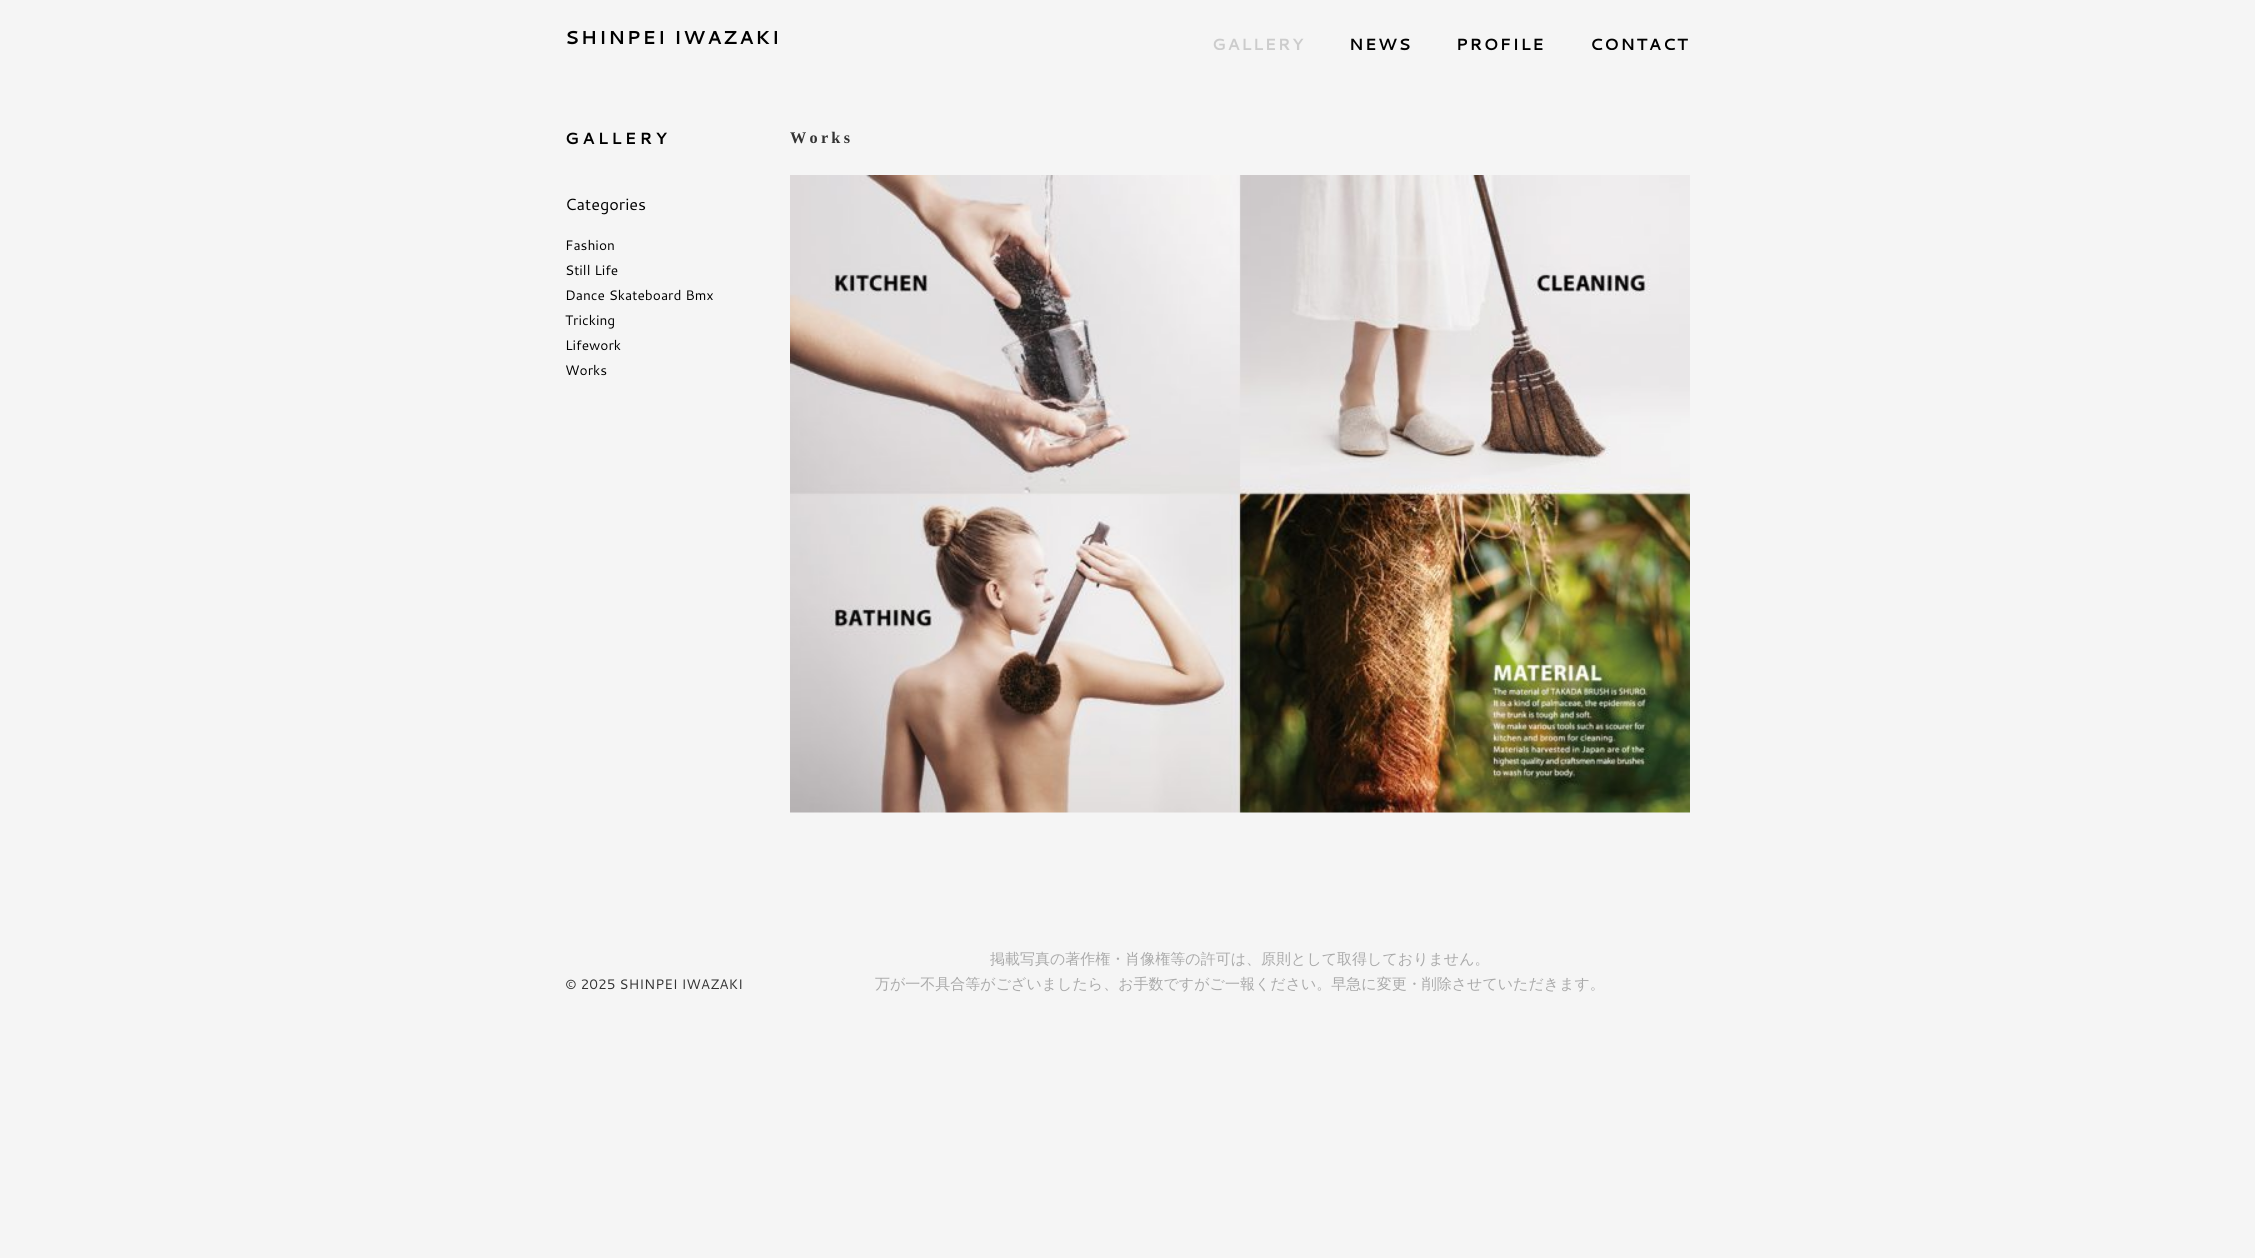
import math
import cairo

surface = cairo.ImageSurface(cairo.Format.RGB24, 2255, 1258)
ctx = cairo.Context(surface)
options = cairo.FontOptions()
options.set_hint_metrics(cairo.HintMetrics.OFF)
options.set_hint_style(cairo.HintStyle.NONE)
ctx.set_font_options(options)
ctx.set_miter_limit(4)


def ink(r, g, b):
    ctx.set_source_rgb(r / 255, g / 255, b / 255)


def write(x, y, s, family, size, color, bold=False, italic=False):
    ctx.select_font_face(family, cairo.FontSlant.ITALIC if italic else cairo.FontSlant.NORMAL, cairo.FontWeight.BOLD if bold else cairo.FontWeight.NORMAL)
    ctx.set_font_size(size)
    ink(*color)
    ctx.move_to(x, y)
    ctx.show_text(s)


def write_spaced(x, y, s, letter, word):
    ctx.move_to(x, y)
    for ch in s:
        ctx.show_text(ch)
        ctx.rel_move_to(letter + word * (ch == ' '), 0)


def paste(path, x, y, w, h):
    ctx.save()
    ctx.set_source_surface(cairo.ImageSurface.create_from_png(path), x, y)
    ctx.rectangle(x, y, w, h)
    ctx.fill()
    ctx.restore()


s1 = dict(family="Cantarell", size=16.25, color=(0, 0, 0))
s2 = dict(family="Cantarell", size=13.75, color=(0, 0, 0))
s3 = dict(family="WenQuanYi Zen Hei Medium", size=15, color=(170, 170, 170))
s4 = dict(family="Cantarell", size=13.75, color=(51, 51, 51))

ink(245, 245, 245)
ctx.paint()
ctx.select_font_face("Cantarell", cairo.FontSlant.NORMAL, cairo.FontWeight.BOLD)
ctx.set_font_size(18.75)
ink(0, 0, 0)
write_spaced(565, 44, "SHINPEI IWAZAKI", 1.9, 0)
ctx.save()
ctx.rectangle(565, 25, 1125, 25)
ctx.clip()
ctx.set_font_size(16.25)
ink(204, 204, 204)
write_spaced(1212, 50, "GALLERY", 1.5, 0)
ctx.restore()
ctx.set_font_size(16.25)
write_spaced(1349, 50, "NEWS", 1.5, 0)
write_spaced(1456, 50, "PROFILE", 1.5, 0)
ctx.save()
ctx.rectangle(565, 25, 1125, 25)
ctx.clip()
write_spaced(1590, 50, "CONTACT", 1.5, 0)
ctx.restore()
write_spaced(565, 144, "GALLERY", 3.25, 0)
write(565, 210, "Categories", **s1)
write(565, 250, "Fashion", **s2)
write(565, 275, "Still Life", **s2)
write(565, 300, "Dance Skateboard Bmx", **s2)
write(565, 325, "Tricking", **s2)
write(565, 350, "Lifework", **s2)
write(565, 375, "Works", **s2)
ctx.select_font_face("Liberation Serif", cairo.FontSlant.NORMAL, cairo.FontWeight.BOLD)
ctx.set_font_size(16.25)
ink(51, 51, 51)
write_spaced(790, 143, "Works", 3.25, 0)
paste("pic1.png", 790, 175, 900, 638)
write(990, 964, "掲載写真の著作権・肖像権等の許可は、原則として取得しておりません。", **s3)
write(875, 989, "万が一不具合等がございましたら、お手数ですがご一報ください。早急に変更・削除させていただきます。", **s3)
write(565, 989, "© 2025 SHINPEI IWAZAKI", **s4)
surface.write_to_png("screenshot.png")
